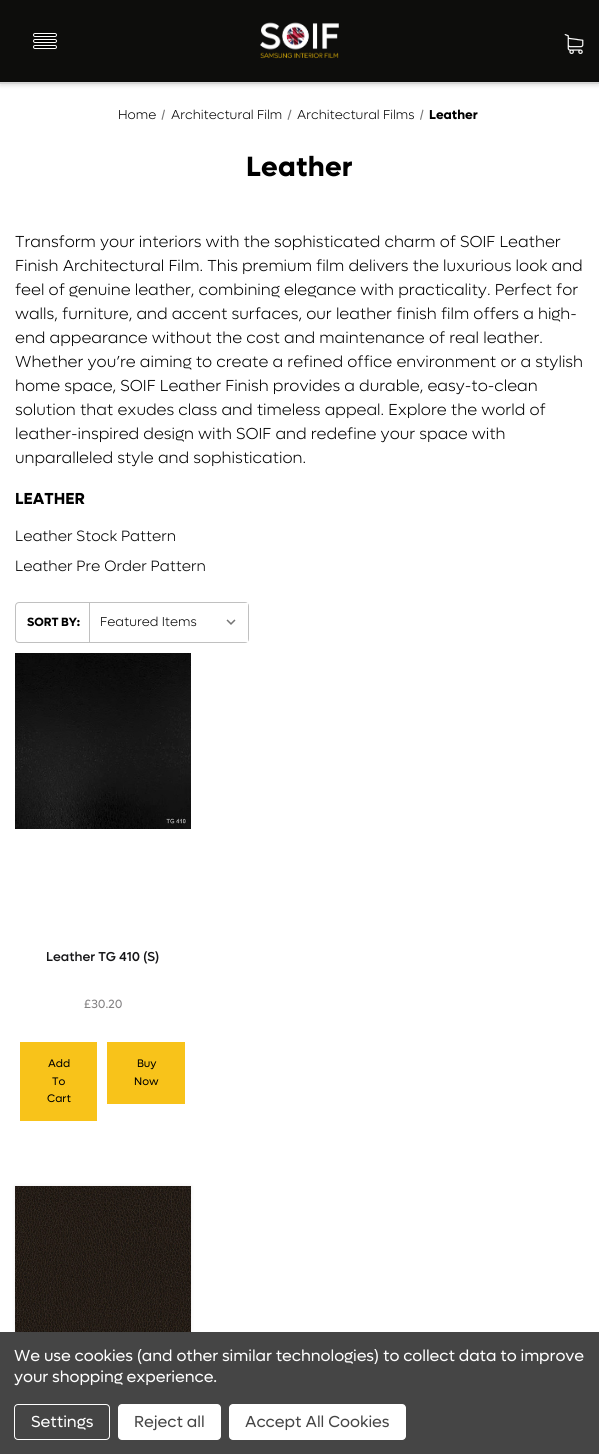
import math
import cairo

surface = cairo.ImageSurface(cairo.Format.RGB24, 599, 1454)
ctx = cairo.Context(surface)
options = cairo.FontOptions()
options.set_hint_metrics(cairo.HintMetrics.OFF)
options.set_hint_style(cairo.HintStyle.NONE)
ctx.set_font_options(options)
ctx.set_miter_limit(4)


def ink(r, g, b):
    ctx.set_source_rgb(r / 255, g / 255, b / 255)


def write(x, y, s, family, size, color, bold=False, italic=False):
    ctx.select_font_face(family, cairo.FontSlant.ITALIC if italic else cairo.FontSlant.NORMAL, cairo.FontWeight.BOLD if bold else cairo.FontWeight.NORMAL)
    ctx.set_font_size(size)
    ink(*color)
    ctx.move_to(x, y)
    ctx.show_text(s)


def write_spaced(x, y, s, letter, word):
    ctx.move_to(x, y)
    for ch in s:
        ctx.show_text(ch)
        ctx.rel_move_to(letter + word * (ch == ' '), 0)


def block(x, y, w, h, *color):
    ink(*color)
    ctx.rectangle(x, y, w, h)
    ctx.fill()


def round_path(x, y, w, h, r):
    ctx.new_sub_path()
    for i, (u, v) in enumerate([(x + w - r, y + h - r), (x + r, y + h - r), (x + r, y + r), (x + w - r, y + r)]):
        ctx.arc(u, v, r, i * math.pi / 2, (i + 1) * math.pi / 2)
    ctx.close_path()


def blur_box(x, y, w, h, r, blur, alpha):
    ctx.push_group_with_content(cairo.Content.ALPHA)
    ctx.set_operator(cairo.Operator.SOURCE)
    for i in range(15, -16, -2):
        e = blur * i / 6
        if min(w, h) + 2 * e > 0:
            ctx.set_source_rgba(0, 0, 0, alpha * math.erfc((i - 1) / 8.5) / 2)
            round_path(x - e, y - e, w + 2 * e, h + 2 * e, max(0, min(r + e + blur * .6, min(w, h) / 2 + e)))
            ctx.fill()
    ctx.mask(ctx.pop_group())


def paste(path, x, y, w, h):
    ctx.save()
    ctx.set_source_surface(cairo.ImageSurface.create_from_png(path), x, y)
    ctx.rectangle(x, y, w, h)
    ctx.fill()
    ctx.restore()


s1 = dict(family="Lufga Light", size=13, color=(0, 0, 0))
s2 = dict(family="Lufga", size=13, color=(0, 0, 0), bold=True)
s3 = dict(family="Lufga Light", size=16, color=(0, 0, 0))
s4 = dict(family="Lufga", size=16, color=(0, 0, 0), bold=True)
s5 = dict(family="Lufga Light", size=15, color=(0, 0, 0))
s6 = dict(family="Lufga", size=12, color=(0, 0, 0), bold=True)
s7 = dict(family="Lufga Medium", size=13, color=(22, 22, 24))
s8 = dict(family="Lufga", size=12, color=(132, 130, 131))
s9 = dict(family="Lufga", size=11, color=(0, 0, 0))
s10 = dict(family="Lufga", size=16, color=(255, 255, 255))
s11 = dict(family="Lufga", size=16, color=(69, 69, 69))

ink(255, 255, 255)
ctx.paint()
ink(0, 0, 0)
blur_box(0, 2, 599, 84, 0, 1.5, 0.1)
block(0, 0, 599, 82, 13, 13, 12)
block(0, 82, 599, 2, 213, 213, 213)
paste("pic1.png", 33, 33, 24, 16)
paste("pic2.png", 260, 22, 79, 37)
paste("pic3.png", 564, 34, 20, 20)
write(118, 119, "Home", **s1)
ink(117, 117, 117)
ctx.new_path()
ctx.move_to(164, 109.5)
ctx.line_to(165, 110)
ctx.line_to(162.5, 120)
ctx.line_to(161.5, 119.5)
ctx.close_path()
ctx.fill()
write(171, 119, "Architectural Film", **s1)
ink(117, 117, 117)
ctx.new_path()
ctx.move_to(290.5, 109.5)
ctx.line_to(291.5, 110)
ctx.line_to(288.5, 120)
ctx.line_to(287.5, 119.5)
ctx.close_path()
ctx.fill()
write(297, 119, "Architectural Films", **s1)
ink(117, 117, 117)
ctx.new_path()
ctx.move_to(422.5, 109.5)
ctx.line_to(423.5, 110)
ctx.line_to(421, 120)
ctx.line_to(420, 119.5)
ctx.close_path()
ctx.fill()
write(429, 119, "Leather", **s2)
ctx.set_font_size(28)
write_spaced(246, 176, "Leather", 0.25, 0)
write(15, 247, "Transform your interiors with the sophisticated charm of SOIF Leather", **s3)
write(15, 271, "Finish Architectural Film. This premium film delivers the luxurious look and", **s3)
write(15, 295, "feel of genuine leather, combining elegance with practicality. Perfect for", **s3)
write(15, 319, "walls, furniture, and accent surfaces, our leather finish film offers a high-", **s3)
write(15, 343, "end appearance without the cost and maintenance of real leather.", **s3)
write(15, 367, "Whether you’re aiming to create a refined office environment or a stylish", **s3)
write(15, 391, "home space, SOIF Leather Finish provides a durable, easy-to-clean", **s3)
write(15, 415, "solution that exudes class and timeless appeal. Explore the world of", **s3)
write(15, 439, "leather-inspired design with SOIF and redefine your space with", **s3)
write(15, 463, "unparalleled style and sophistication.", **s3)
write(15, 504, "LEATHER", **s4)
write(15, 541, "Leather Stock Pattern", **s5)
write(15, 571, "Leather Pre Order Pattern", **s5)
round_path(15.5, 602.5, 233, 40, 3.5)
ink(192, 192, 192)
ctx.set_line_width(1)
ctx.stroke()
write(27, 626, "SORT BY:", **s6)
block(245, 603, 3, 39, 255, 255, 255)
paste("pic4.png", 226, 619, 10, 6)
block(89, 603, 1, 39, 192, 192, 192)
write(100, 626, "Featured Items", **s1)
paste("pic5.png", 15, 653, 176, 176)
write(46, 961, "Leather TG 410 (S)", **s7)
write(84, 1008, "£30.20", **s8)
block(20, 1042, 77, 79, 248, 195, 26)
write(48, 1067, "Add", **s9)
write(52, 1085, "To", **s9)
write(47, 1102, "Cart", **s9)
block(107, 1042, 78, 62, 248, 195, 26)
write(137, 1067, "Buy", **s9)
write(134, 1085, "Now", **s9)
ink(0, 0, 0)
blur_box(15, 1186, 176, 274, 0, 2, 0.08)
paste("pic6.png", 15, 1186, 176, 146)
block(0, 1332, 599, 122, 69, 69, 69)
ctx.set_font_size(16)
ink(255, 255, 255)
write_spaced(14, 1361, "We use cookies (and other similar technologies) to collect data to improve", -0.05, 0)
write_spaced(14, 1382, "your shopping experience.", -0.05, 0)
round_path(14.5, 1404.5, 95, 35, 3.5)
ctx.stroke()
write(31, 1427, "Settings", **s10)
round_path(118, 1404, 103, 36, 4)
ctx.fill()
write(134, 1427, "Reject all", **s11)
ink(255, 255, 255)
round_path(229, 1404, 177, 36, 4)
ctx.fill()
write(245, 1427, "Accept All Cookies", **s11)
surface.write_to_png("screenshot.png")
